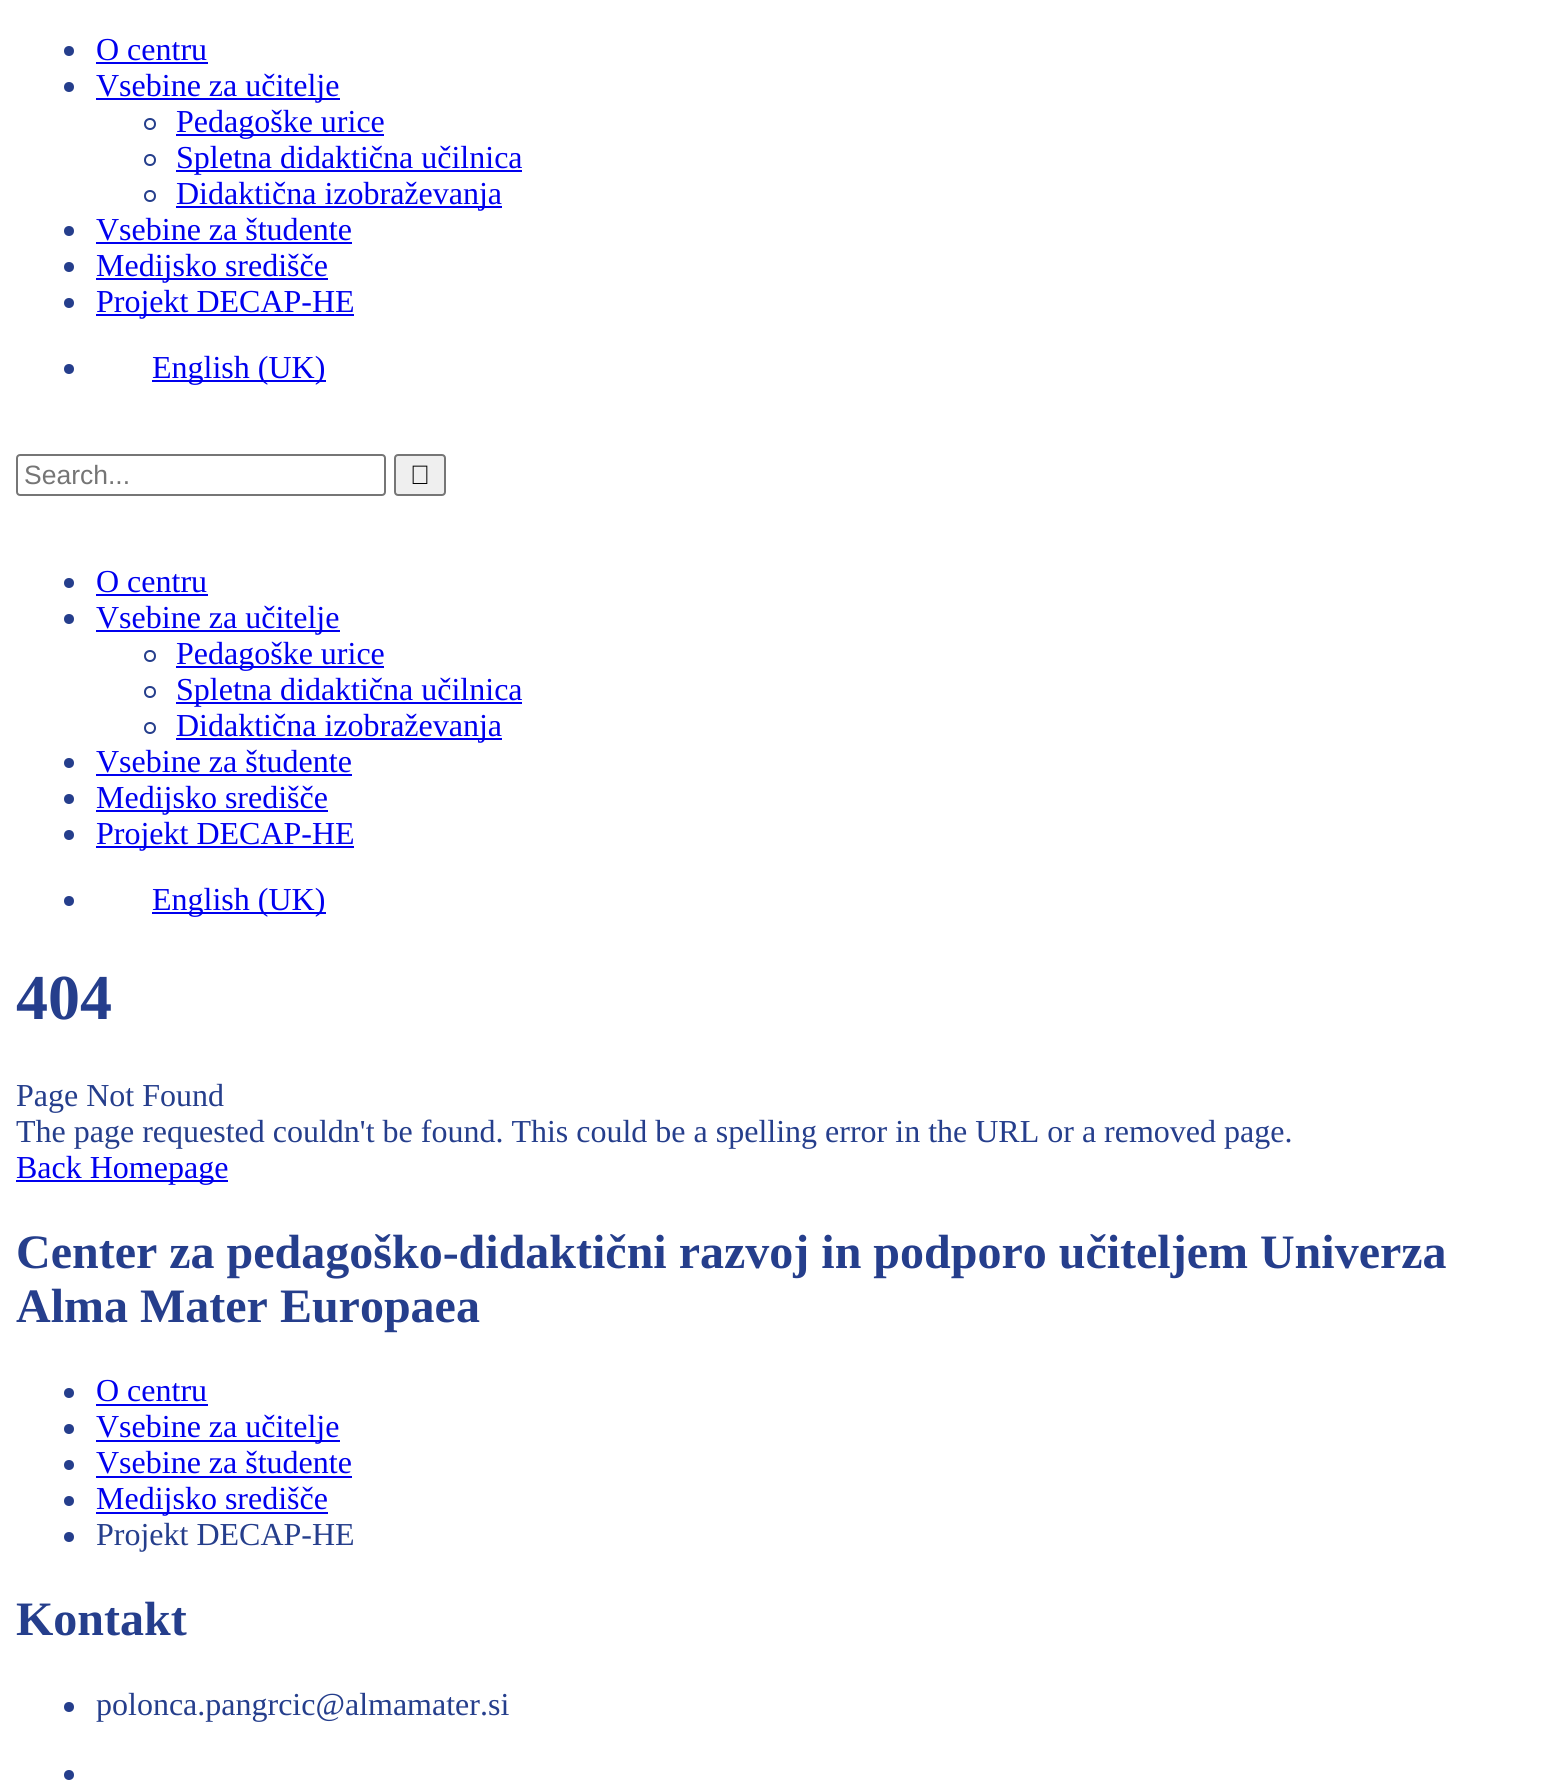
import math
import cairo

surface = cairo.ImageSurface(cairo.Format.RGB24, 1546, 1790)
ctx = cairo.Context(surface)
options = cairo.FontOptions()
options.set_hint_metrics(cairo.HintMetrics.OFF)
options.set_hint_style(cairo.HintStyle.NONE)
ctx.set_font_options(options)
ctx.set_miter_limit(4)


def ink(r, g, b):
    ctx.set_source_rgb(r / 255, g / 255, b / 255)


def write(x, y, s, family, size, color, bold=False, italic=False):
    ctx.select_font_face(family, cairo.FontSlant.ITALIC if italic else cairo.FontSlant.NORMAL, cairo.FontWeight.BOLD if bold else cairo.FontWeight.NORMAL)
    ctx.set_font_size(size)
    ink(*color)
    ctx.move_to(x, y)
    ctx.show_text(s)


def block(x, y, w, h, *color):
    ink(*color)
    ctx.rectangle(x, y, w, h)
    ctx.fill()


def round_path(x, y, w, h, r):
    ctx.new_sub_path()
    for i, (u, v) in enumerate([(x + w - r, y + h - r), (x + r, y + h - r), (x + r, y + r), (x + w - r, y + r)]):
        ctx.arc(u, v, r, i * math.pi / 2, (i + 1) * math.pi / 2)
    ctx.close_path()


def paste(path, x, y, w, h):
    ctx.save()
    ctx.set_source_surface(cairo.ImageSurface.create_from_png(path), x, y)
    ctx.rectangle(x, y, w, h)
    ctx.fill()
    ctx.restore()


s1 = dict(family="Liberation Serif", size=32, color=(0, 0, 238))
s2 = dict(family="Liberation Sans", size=26.5, color=(117, 117, 117))
s3 = dict(family="Liberation Serif", size=64, color=(37, 62, 140), bold=True)
s4 = dict(family="Liberation Serif", size=32, color=(37, 62, 140))
s5 = dict(family="Liberation Serif", size=48, color=(37, 62, 140), bold=True)

ink(255, 255, 255)
ctx.paint()
ink(37, 62, 140)
ctx.arc(69, 51, 5, 0, 2 * math.pi)
ctx.fill()
write(96, 60, "O centru", **s1)
block(96, 62, 112, 2, 0, 0, 238)
ink(37, 62, 140)
ctx.new_path()
ctx.arc(69, 87, 5, 0, 2 * math.pi)
ctx.fill()
block(96, 98, 244, 2, 0, 0, 238)
write(96, 96, "Vsebine za učitelje", **s1)
ctx.new_path()
ctx.arc(150, 124, 5, 0, 2 * math.pi)
ink(37, 62, 140)
ctx.stroke()
block(176, 134, 208, 2, 0, 0, 238)
write(176, 132, "Pedagoške urice", **s1)
ctx.new_path()
ctx.arc(150, 160, 5, 0, 2 * math.pi)
ink(37, 62, 140)
ctx.stroke()
block(176, 170, 346, 2, 0, 0, 238)
write(176, 168, "Spletna didaktična učilnica", **s1)
ctx.new_path()
ctx.arc(150, 196, 5, 0, 2 * math.pi)
ink(37, 62, 140)
ctx.stroke()
block(176, 206, 326, 2, 0, 0, 238)
write(176, 204, "Didaktična izobraževanja", **s1)
ink(37, 62, 140)
ctx.new_path()
ctx.arc(69, 231, 5, 0, 2 * math.pi)
ctx.fill()
write(96, 240, "Vsebine za študente", **s1)
block(96, 242, 256, 2, 0, 0, 238)
ink(37, 62, 140)
ctx.new_path()
ctx.arc(69, 267, 5, 0, 2 * math.pi)
ctx.fill()
block(96, 278, 232, 2, 0, 0, 238)
write(96, 276, "Medijsko središče", **s1)
ink(37, 62, 140)
ctx.new_path()
ctx.arc(69, 303, 5, 0, 2 * math.pi)
ctx.fill()
block(96, 314, 258, 2, 0, 0, 238)
write(96, 312, "Projekt DECAP-HE", **s1)
ink(37, 62, 140)
ctx.new_path()
ctx.arc(69, 369, 5, 0, 2 * math.pi)
ctx.fill()
block(152, 380, 174, 2, 0, 0, 238)
write(152, 378, "English (UK)", **s1)
round_path(17, 455, 368, 40, 3)
ink(118, 118, 118)
ctx.stroke()
write(24, 484, "Search...", **s2)
ink(239, 239, 239)
round_path(395, 455, 50, 40, 3)
ctx.fill_preserve()
ink(118, 118, 118)
ctx.stroke()
paste("pic1.png", 412, 465, 16, 19)
ink(37, 62, 140)
ctx.arc(69, 583, 5, 0, 2 * math.pi)
ctx.fill()
write(96, 592, "O centru", **s1)
block(96, 594, 112, 2, 0, 0, 238)
ink(37, 62, 140)
ctx.new_path()
ctx.arc(69, 619, 5, 0, 2 * math.pi)
ctx.fill()
block(96, 630, 244, 2, 0, 0, 238)
write(96, 628, "Vsebine za učitelje", **s1)
ctx.new_path()
ctx.arc(150, 656, 5, 0, 2 * math.pi)
ink(37, 62, 140)
ctx.stroke()
block(176, 666, 208, 2, 0, 0, 238)
write(176, 664, "Pedagoške urice", **s1)
ctx.new_path()
ctx.arc(150, 692, 5, 0, 2 * math.pi)
ink(37, 62, 140)
ctx.stroke()
block(176, 702, 346, 2, 0, 0, 238)
write(176, 700, "Spletna didaktična učilnica", **s1)
ctx.new_path()
ctx.arc(150, 728, 5, 0, 2 * math.pi)
ink(37, 62, 140)
ctx.stroke()
block(176, 738, 326, 2, 0, 0, 238)
write(176, 736, "Didaktična izobraževanja", **s1)
ink(37, 62, 140)
ctx.new_path()
ctx.arc(69, 763, 5, 0, 2 * math.pi)
ctx.fill()
write(96, 772, "Vsebine za študente", **s1)
block(96, 774, 256, 2, 0, 0, 238)
ink(37, 62, 140)
ctx.new_path()
ctx.arc(69, 799, 5, 0, 2 * math.pi)
ctx.fill()
block(96, 810, 232, 2, 0, 0, 238)
write(96, 808, "Medijsko središče", **s1)
ink(37, 62, 140)
ctx.new_path()
ctx.arc(69, 835, 5, 0, 2 * math.pi)
ctx.fill()
block(96, 846, 258, 2, 0, 0, 238)
write(96, 844, "Projekt DECAP-HE", **s1)
ink(37, 62, 140)
ctx.new_path()
ctx.arc(69, 901, 5, 0, 2 * math.pi)
ctx.fill()
block(152, 912, 174, 2, 0, 0, 238)
write(152, 910, "English (UK)", **s1)
write(16, 1019, "404", **s3)
write(16, 1106, "Page Not Found", **s4)
write(16, 1142, "The page requested couldn't be found. This could be a spelling error in the URL or a removed page.", **s4)
block(16, 1180, 212, 2, 0, 0, 238)
write(16, 1178, "Back Homepage", **s1)
write(16, 1268, "Center za pedagoško-didaktični razvoj in podporo učiteljem Univerza", **s5)
write(16, 1322, "Alma Mater Europaea", **s5)
ctx.new_path()
ctx.arc(69, 1393, 5, 0, 2 * math.pi)
ctx.fill()
write(96, 1401, "O centru", **s1)
block(96, 1404, 112, 2, 0, 0, 238)
ink(37, 62, 140)
ctx.new_path()
ctx.arc(69, 1429, 5, 0, 2 * math.pi)
ctx.fill()
block(96, 1440, 244, 2, 0, 0, 238)
write(96, 1437, "Vsebine za učitelje", **s1)
ink(37, 62, 140)
ctx.new_path()
ctx.arc(69, 1465, 5, 0, 2 * math.pi)
ctx.fill()
write(96, 1473, "Vsebine za študente", **s1)
block(96, 1476, 256, 2, 0, 0, 238)
ink(37, 62, 140)
ctx.new_path()
ctx.arc(69, 1501, 5, 0, 2 * math.pi)
ctx.fill()
block(96, 1512, 232, 2, 0, 0, 238)
write(96, 1509, "Medijsko središče", **s1)
ink(37, 62, 140)
ctx.new_path()
ctx.arc(69, 1537, 5, 0, 2 * math.pi)
ctx.fill()
write(96, 1545, "Projekt DECAP-HE", **s4)
write(16, 1635, "Kontakt", **s5)
ctx.new_path()
ctx.arc(69, 1707, 5, 0, 2 * math.pi)
ctx.fill()
write(96, 1715, "polonca.pangrcic@almamater.si", **s4)
ctx.new_path()
ctx.arc(69, 1775, 5, 0, 2 * math.pi)
ctx.fill()
surface.write_to_png("screenshot.png")
